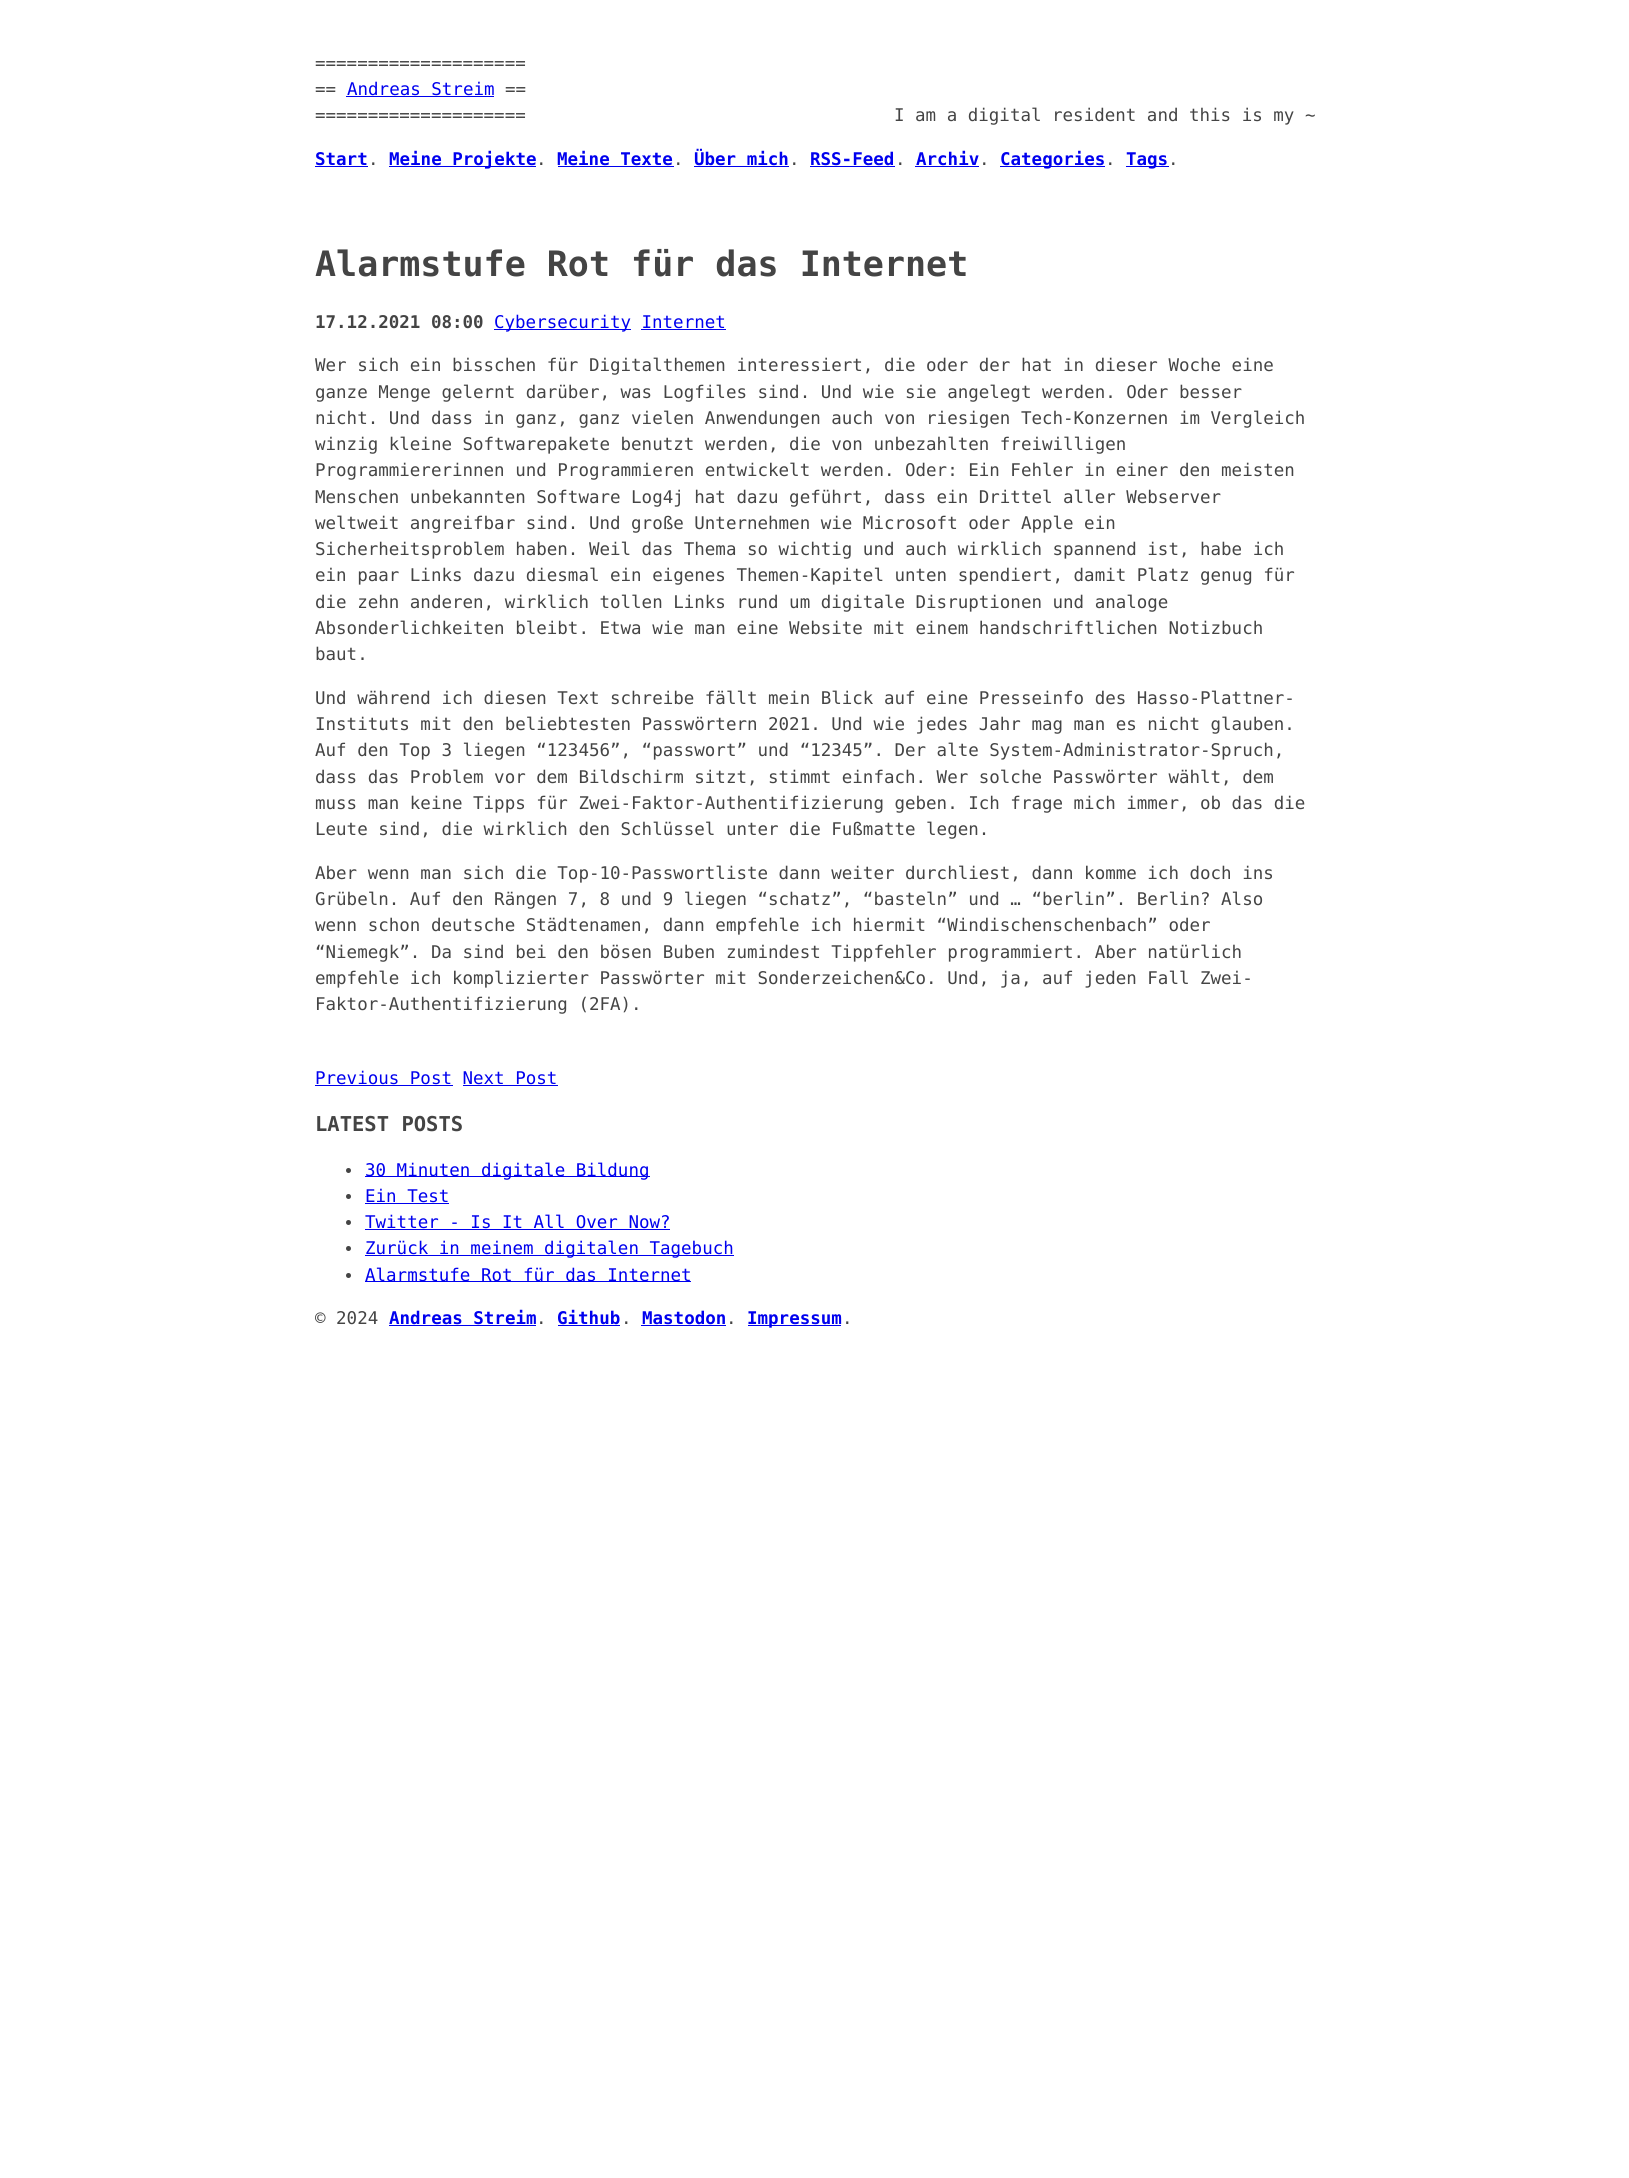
import math
import cairo

surface = cairo.ImageSurface(cairo.Format.RGB24, 1629, 2178)
ctx = cairo.Context(surface)
options = cairo.FontOptions()
options.set_hint_metrics(cairo.HintMetrics.OFF)
options.set_hint_style(cairo.HintStyle.NONE)
ctx.set_font_options(options)
ctx.set_miter_limit(4)


def ink(r, g, b):
    ctx.set_source_rgb(r / 255, g / 255, b / 255)


def write(x, y, s, family, size, color, bold=False, italic=False):
    ctx.select_font_face(family, cairo.FontSlant.ITALIC if italic else cairo.FontSlant.NORMAL, cairo.FontWeight.BOLD if bold else cairo.FontWeight.NORMAL)
    ctx.set_font_size(size)
    ink(*color)
    ctx.move_to(x, y)
    ctx.show_text(s)


def block(x, y, w, h, *color):
    ink(*color)
    ctx.rectangle(x, y, w, h)
    ctx.fill()


s1 = dict(family="DejaVu Sans Mono", size=17.5, color=(68, 68, 68))
s2 = dict(family="DejaVu Sans Mono", size=17.5, color=(0, 0, 238))
s3 = dict(family="DejaVu Sans Mono", size=17.5, color=(0, 0, 238), bold=True)
s4 = dict(family="DejaVu Sans Mono", size=35, color=(68, 68, 68), bold=True)
s5 = dict(family="DejaVu Sans Mono", size=17.5, color=(68, 68, 68), bold=True)
s6 = dict(family="DejaVu Sans Mono", size=20.5, color=(68, 68, 68), bold=True)

ink(255, 255, 255)
ctx.paint()
write(315, 69, "====================", **s1)
write(315, 95, "==", **s1)
write(347, 95, "Andreas Streim", **s2)
block(346, 96, 148, 1, 0, 0, 238)
write(505, 95, "==", **s1)
write(315, 121, "====================", **s1)
write(894, 121, "I am a digital resident and this is my ~", **s1)
write(315, 165, "Start", **s3)
block(315, 166, 53, 1, 0, 0, 238)
write(368, 165, ".", **s1)
block(389, 166, 147, 1, 0, 0, 238)
write(389, 165, "Meine Projekte", **s3)
write(536, 165, ".", **s1)
write(557, 165, "Meine Texte", **s3)
block(558, 166, 116, 1, 0, 0, 238)
write(673, 165, ".", **s1)
write(694, 165, "Über mich", **s3)
block(694, 166, 95, 1, 0, 0, 238)
write(789, 165, ".", **s1)
write(810, 165, "RSS-Feed", **s3)
block(810, 166, 85, 1, 0, 0, 238)
write(895, 165, ".", **s1)
write(916, 165, "Archiv", **s3)
block(915, 166, 64, 1, 0, 0, 238)
write(979, 165, ".", **s1)
block(1000, 166, 105, 1, 0, 0, 238)
write(1000, 165, "Categories", **s3)
write(1105, 165, ".", **s1)
block(1126, 166, 43, 1, 0, 0, 238)
write(1126, 165, "Tags", **s3)
write(1168, 165, ".", **s1)
write(315, 276, "Alarmstufe Rot für das Internet", **s4)
write(315, 328, "17.12.2021 08:00", **s5)
block(494, 329, 137, 1, 0, 0, 238)
write(494, 328, "Cybersecurity Internet", **s2)
block(641, 329, 85, 1, 0, 0, 238)
write(315, 371, "Wer sich ein bisschen für Digitalthemen interessiert, die oder der hat in dieser Woche eine", **s1)
write(315, 398, "ganze Menge gelernt darüber, was Logfiles sind. Und wie sie angelegt werden. Oder besser", **s1)
write(315, 424, "nicht. Und dass in ganz, ganz vielen Anwendungen auch von riesigen Tech-Konzernen im Vergleich", **s1)
write(315, 450, "winzig kleine Softwarepakete benutzt werden, die von unbezahlten freiwilligen", **s1)
write(315, 476, "Programmiererinnen und Programmieren entwickelt werden. Oder: Ein Fehler in einer den meisten", **s1)
write(315, 503, "Menschen unbekannten Software Log4j hat dazu geführt, dass ein Drittel aller Webserver", **s1)
write(315, 529, "weltweit angreifbar sind. Und große Unternehmen wie Microsoft oder Apple ein", **s1)
write(315, 555, "Sicherheitsproblem haben. Weil das Thema so wichtig und auch wirklich spannend ist, habe ich", **s1)
write(315, 581, "ein paar Links dazu diesmal ein eigenes Themen-Kapitel unten spendiert, damit Platz genug für", **s1)
write(315, 608, "die zehn anderen, wirklich tollen Links rund um digitale Disruptionen und analoge", **s1)
write(315, 634, "Absonderlichkeiten bleibt. Etwa wie man eine Website mit einem handschriftlichen Notizbuch", **s1)
write(315, 660, "baut.", **s1)
write(315, 704, "Und während ich diesen Text schreibe fällt mein Blick auf eine Presseinfo des Hasso-Plattner-", **s1)
write(315, 730, "Instituts mit den beliebtesten Passwörtern 2021. Und wie jedes Jahr mag man es nicht glauben.", **s1)
write(315, 756, "Auf den Top 3 liegen “123456”, “passwort” und “12345”. Der alte System-Administrator-Spruch,", **s1)
write(315, 783, "dass das Problem vor dem Bildschirm sitzt, stimmt einfach. Wer solche Passwörter wählt, dem", **s1)
write(315, 809, "muss man keine Tipps für Zwei-Faktor-Authentifizierung geben. Ich frage mich immer, ob das die", **s1)
write(315, 835, "Leute sind, die wirklich den Schlüssel unter die Fußmatte legen.", **s1)
write(315, 879, "Aber wenn man sich die Top-10-Passwortliste dann weiter durchliest, dann komme ich doch ins", **s1)
write(315, 905, "Grübeln. Auf den Rängen 7, 8 und 9 liegen “schatz”, “basteln” und … “berlin”. Berlin? Also", **s1)
write(315, 931, "wenn schon deutsche Städtenamen, dann empfehle ich hiermit “Windischenschenbach” oder", **s1)
write(315, 958, "“Niemegk”. Da sind bei den bösen Buben zumindest Tippfehler programmiert. Aber natürlich", **s1)
write(315, 984, "empfehle ich komplizierter Passwörter mit Sonderzeichen&Co. Und, ja, auf jeden Fall Zwei-", **s1)
write(315, 1010, "Faktor-Authentifizierung (2FA).", **s1)
write(315, 1084, "Previous Post Next Post", **s2)
block(315, 1085, 138, 1, 0, 0, 238)
block(463, 1085, 95, 1, 0, 0, 238)
write(315, 1131, "LATEST POSTS", **s6)
ctx.new_path()
ctx.arc(348.5, 1170.5, 2.5, 0, 2 * math.pi)
ctx.fill()
block(365, 1176, 285, 1, 0, 0, 238)
write(365, 1176, "30 Minuten digitale Bildung", **s2)
ink(68, 68, 68)
ctx.new_path()
ctx.arc(348.5, 1196.5, 2.5, 0, 2 * math.pi)
ctx.fill()
write(365, 1202, "Ein Test", **s2)
block(365, 1203, 84, 1, 0, 0, 238)
ink(68, 68, 68)
ctx.new_path()
ctx.arc(348.5, 1222.5, 2.5, 0, 2 * math.pi)
ctx.fill()
write(365, 1228, "Twitter - Is It All Over Now?", **s2)
block(365, 1229, 305, 1, 0, 0, 238)
ink(68, 68, 68)
ctx.new_path()
ctx.arc(348.5, 1248.5, 2.5, 0, 2 * math.pi)
ctx.fill()
block(365, 1255, 369, 1, 0, 0, 238)
write(365, 1254, "Zurück in meinem digitalen Tagebuch", **s2)
ink(68, 68, 68)
ctx.new_path()
ctx.arc(348.5, 1275.5, 2.5, 0, 2 * math.pi)
ctx.fill()
block(365, 1281, 326, 1, 0, 0, 238)
write(365, 1281, "Alarmstufe Rot für das Internet", **s2)
write(315, 1324, "© 2024", **s1)
write(389, 1324, "Andreas Streim", **s3)
block(389, 1325, 147, 1, 0, 0, 238)
write(536, 1324, ".", **s1)
write(557, 1324, "Github", **s3)
block(558, 1325, 62, 1, 0, 0, 238)
write(621, 1324, ".", **s1)
write(642, 1324, "Mastodon", **s3)
block(641, 1325, 85, 1, 0, 0, 238)
write(726, 1324, ".", **s1)
block(748, 1325, 93, 1, 0, 0, 238)
write(747, 1324, "Impressum", **s3)
write(842, 1324, ".", **s1)
surface.write_to_png("screenshot.png")
